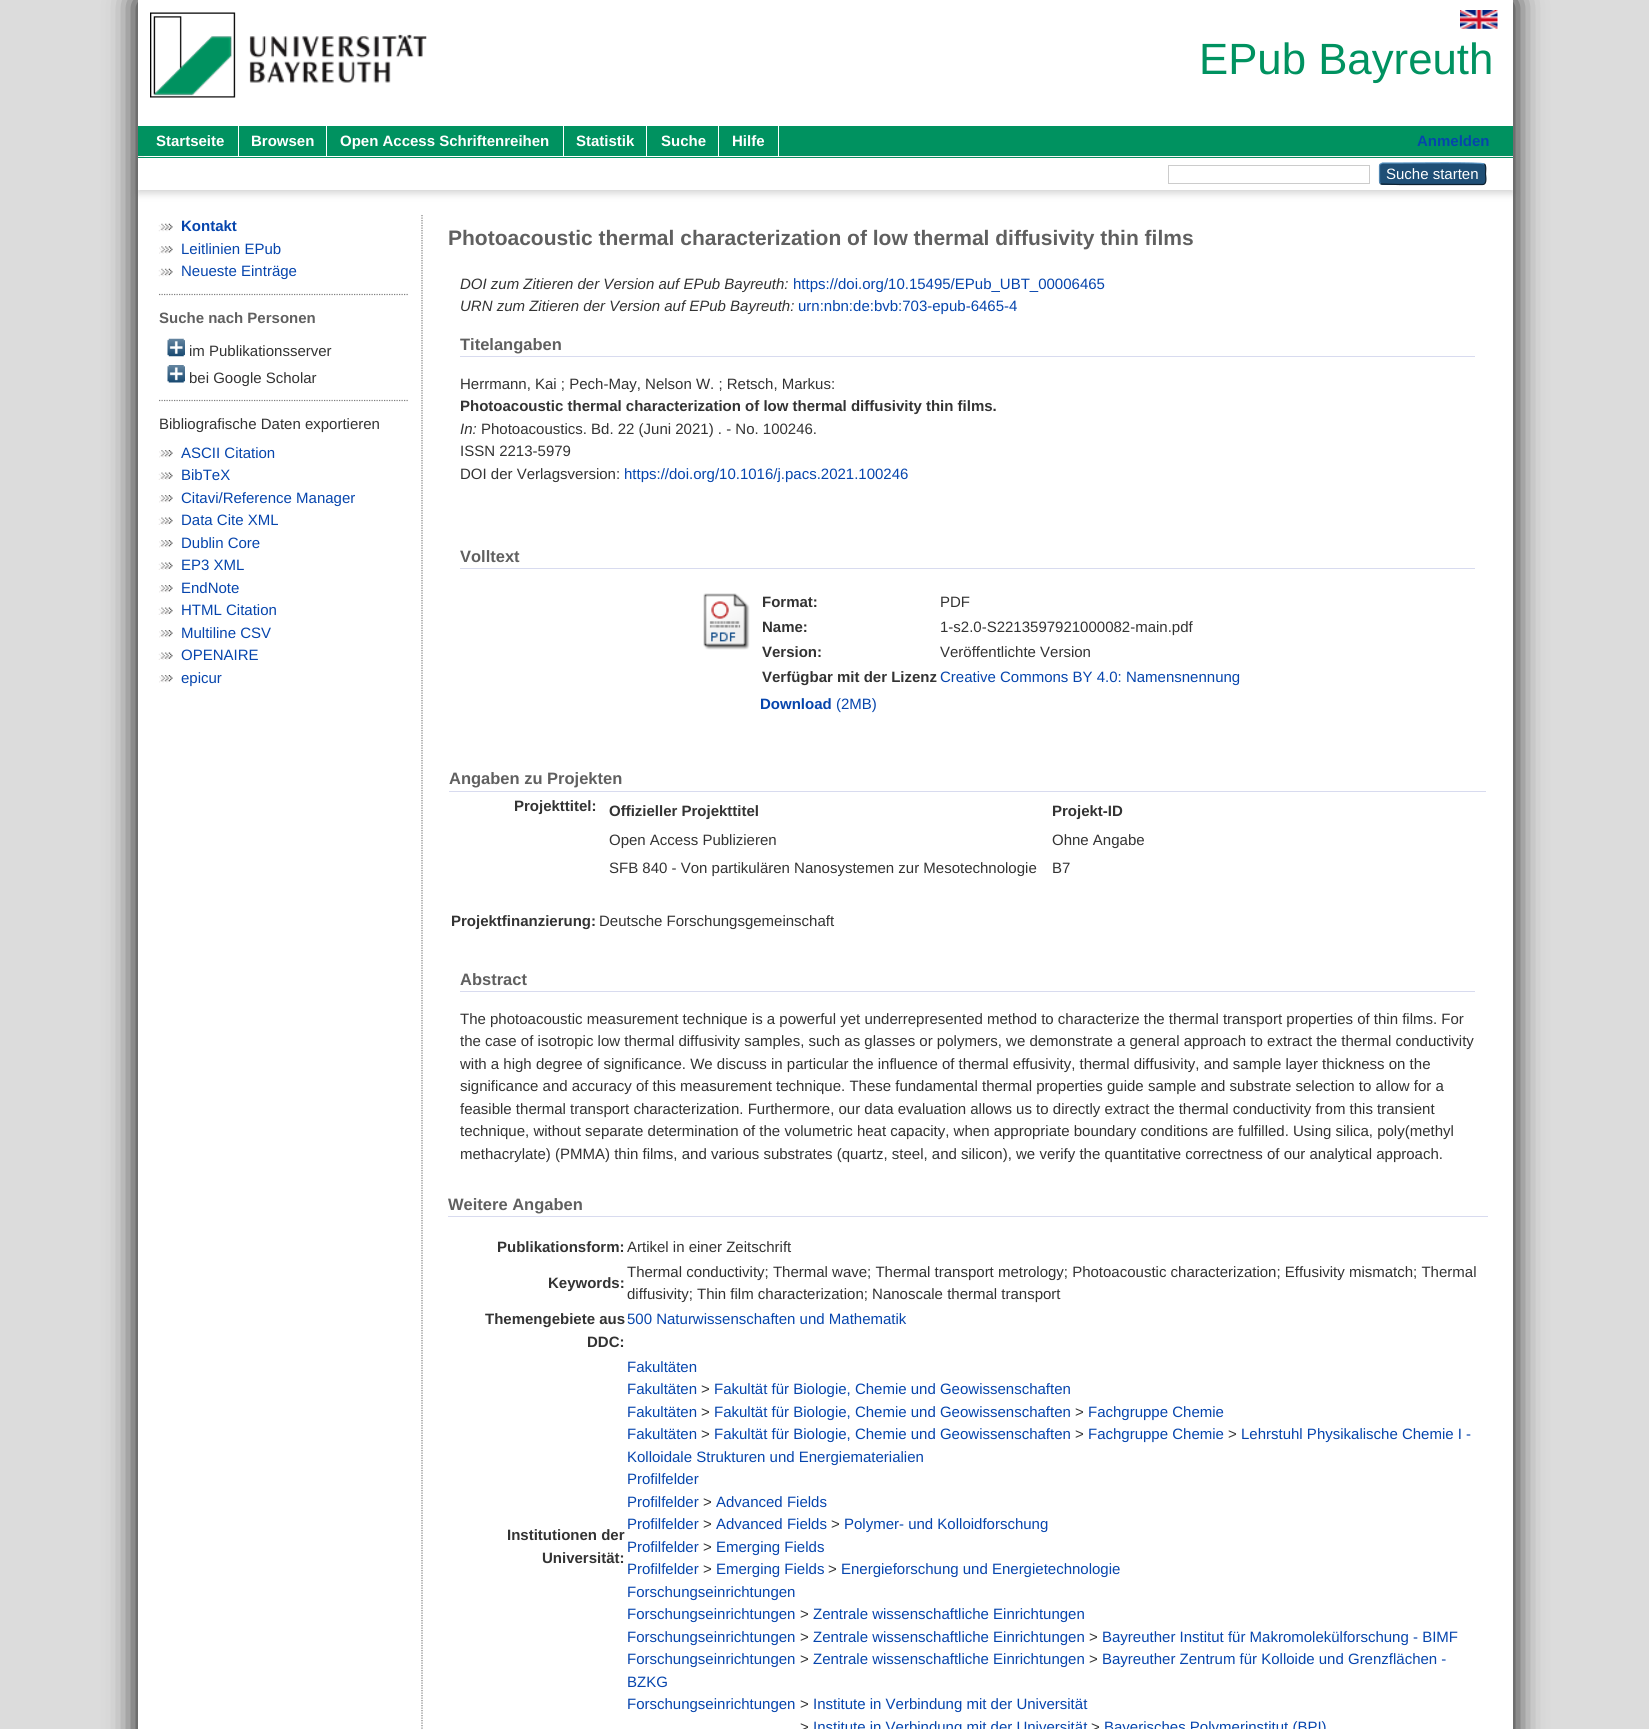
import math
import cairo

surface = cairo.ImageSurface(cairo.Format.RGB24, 1649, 1729)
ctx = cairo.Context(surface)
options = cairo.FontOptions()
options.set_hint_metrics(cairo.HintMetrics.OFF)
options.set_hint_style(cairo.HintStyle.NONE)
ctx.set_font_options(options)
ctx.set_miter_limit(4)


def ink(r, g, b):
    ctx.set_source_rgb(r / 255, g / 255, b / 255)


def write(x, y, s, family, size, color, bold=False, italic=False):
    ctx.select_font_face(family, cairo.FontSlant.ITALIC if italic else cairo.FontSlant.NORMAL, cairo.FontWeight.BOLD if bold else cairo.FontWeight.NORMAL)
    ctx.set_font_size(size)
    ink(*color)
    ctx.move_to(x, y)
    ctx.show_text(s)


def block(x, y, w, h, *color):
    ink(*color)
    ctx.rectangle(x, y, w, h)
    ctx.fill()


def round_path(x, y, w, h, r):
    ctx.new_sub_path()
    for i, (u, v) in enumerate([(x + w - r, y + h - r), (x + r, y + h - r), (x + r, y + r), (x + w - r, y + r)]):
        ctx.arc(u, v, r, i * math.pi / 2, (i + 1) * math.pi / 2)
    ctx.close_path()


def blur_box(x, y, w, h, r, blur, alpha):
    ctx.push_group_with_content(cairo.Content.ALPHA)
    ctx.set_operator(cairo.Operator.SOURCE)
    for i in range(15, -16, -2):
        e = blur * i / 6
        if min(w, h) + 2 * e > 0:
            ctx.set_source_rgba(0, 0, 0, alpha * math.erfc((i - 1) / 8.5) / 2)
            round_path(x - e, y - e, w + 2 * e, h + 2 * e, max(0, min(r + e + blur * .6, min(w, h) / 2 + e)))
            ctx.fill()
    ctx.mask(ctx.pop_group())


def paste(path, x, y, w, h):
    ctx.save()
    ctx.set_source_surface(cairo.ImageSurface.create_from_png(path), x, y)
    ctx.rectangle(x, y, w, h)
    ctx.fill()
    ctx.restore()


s1 = dict(family="Liberation Sans", size=43.75, color=(0, 146, 96))
s2 = dict(family="Liberation Sans", size=15, color=(255, 255, 255), bold=True)
s3 = dict(family="Liberation Sans", size=15, color=(6, 69, 173), bold=True)
s4 = dict(family="Liberation Sans", size=15, color=(255, 255, 255))
s5 = dict(family="Liberation Sans", size=15, color=(6, 69, 173))
s6 = dict(family="Liberation Sans", size=15, color=(96, 96, 96), bold=True)
s7 = dict(family="Liberation Sans", size=15, color=(51, 51, 51))
s8 = dict(family="Liberation Sans", size=21, color=(96, 96, 96), bold=True)
s9 = dict(family="Liberation Sans", size=15, color=(51, 51, 51), italic=True)
s10 = dict(family="Liberation Sans", size=16.5, color=(96, 96, 96), bold=True)
s11 = dict(family="Liberation Sans", size=15, color=(51, 51, 51), bold=True)

ink(220, 220, 220)
ctx.paint()
ink(0, 0, 0)
blur_box(138, 0, 1375, 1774, 0, 15, 1)
block(138, 0, 1375, 1729, 255, 255, 255)
paste("pic1.png", 150, 12, 277, 86)
paste("pic2.png", 1460, 10, 38, 19)
write(1199, 74, "EPub Bayreuth", **s1)
block(138, 126, 1375, 32, 0, 146, 96)
block(138, 156, 1375, 1, 255, 255, 255)
ink(100, 100, 100)
blur_box(138, 160, 1375, 33, 0, 4, 0.3)
block(144, 155, 635, 3, 0, 146, 96)
block(144, 156, 635, 1, 255, 255, 255)
block(238, 126, 1, 30, 255, 255, 255)
write(156, 146, "Startseite", **s2)
block(326, 126, 1, 30, 255, 255, 255)
write(251, 146, "Browsen", **s2)
block(563, 126, 1, 30, 255, 255, 255)
write(340, 146, "Open Access Schriftenreihen", **s2)
block(646, 126, 1, 30, 255, 255, 255)
write(576, 146, "Statistik", **s2)
block(718, 126, 1, 30, 255, 255, 255)
write(661, 146, "Suche", **s2)
block(778, 126, 1, 30, 255, 255, 255)
write(732, 146, "Hilfe", **s2)
write(1417, 146, "Anmelden", **s3)
block(138, 158, 1375, 32, 255, 255, 255)
ctx.rectangle(1168.5, 165.5, 201, 18)
ink(204, 204, 204)
ctx.set_line_width(1)
ctx.stroke()
ink(31, 79, 118)
round_path(1379, 163, 107, 22, 4)
ctx.fill()
ctx.new_path()
ctx.move_to(1380.5, 164)
ctx.line_to(1382.5, 163)
ctx.line_to(1399, 163)
ctx.curve_to(1408, 163, 1482.5, 162, 1484.5, 164)
ink(91, 151, 199)
ctx.set_line_width(1.2)
ctx.stroke()
ctx.new_path()
ctx.move_to(1484.5, 164)
ctx.curve_to(1486.5, 166, 1485.5, 171.5, 1485.5, 174)
ctx.curve_to(1485.5, 176, 1487.5, 184.5, 1482.5, 184.5)
ctx.line_to(1399, 184.5)
ctx.line_to(1381, 184)
ctx.line_to(1380.5, 183.5)
ink(13, 33, 49)
ctx.stroke()
ctx.new_path()
ctx.move_to(1380.5, 183.5)
ctx.curve_to(1379.5, 183, 1379.5, 182, 1379.5, 181)
ctx.line_to(1379.5, 166)
ctx.curve_to(1379.5, 165.5, 1379.5, 164.5, 1380.5, 164)
ink(82, 135, 179)
ctx.stroke()
write(1386, 179, "Suche starten", **s4)
paste("pic3.png", 158, 223, 15, 9)
write(181, 231, "Kontakt", **s3)
paste("pic4.png", 159, 246, 14, 8)
write(181, 254, "Leitlinien EPub", **s5)
paste("pic3.png", 158, 268, 15, 9)
write(181, 276, "Neueste Einträge", **s5)
ctx.new_path()
ctx.move_to(159, 294.5)
ctx.line_to(409, 294.5)
ink(128, 128, 128)
ctx.set_dash([1.25, 1.25])
ctx.stroke()
write(159, 323, "Suche nach Personen", **s6)
paste("pic5.png", 167, 338, 18, 19)
write(189, 356, "im Publikationsserver", **s7)
paste("pic6.png", 167, 365, 18, 18)
write(189, 383, "bei Google Scholar", **s7)
ctx.new_path()
ctx.move_to(159, 400.5)
ctx.line_to(409, 400.5)
ink(128, 128, 128)
ctx.stroke()
write(159, 429, "Bibliografische Daten exportieren", **s7)
paste("pic7.png", 159, 450, 14, 8)
write(181, 458, "ASCII Citation", **s5)
paste("pic8.png", 158, 472, 15, 8)
write(181, 480, "BibTeX", **s5)
paste("pic7.png", 159, 495, 14, 8)
write(181, 503, "Citavi/Reference Manager", **s5)
paste("pic8.png", 158, 517, 15, 8)
write(181, 525, "Data Cite XML", **s5)
paste("pic7.png", 159, 540, 14, 8)
write(181, 548, "Dublin Core", **s5)
paste("pic8.png", 158, 562, 15, 8)
write(181, 570, "EP3 XML", **s5)
paste("pic7.png", 159, 585, 14, 8)
write(181, 593, "EndNote", **s5)
paste("pic8.png", 158, 607, 15, 8)
write(181, 615, "HTML Citation", **s5)
paste("pic7.png", 159, 630, 14, 8)
write(181, 638, "Multiline CSV", **s5)
paste("pic8.png", 158, 652, 15, 8)
write(181, 660, "OPENAIRE", **s5)
paste("pic7.png", 159, 675, 14, 8)
write(181, 683, "epicur", **s5)
ctx.new_path()
ctx.move_to(422, 215)
ctx.line_to(422, 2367.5)
ink(128, 128, 128)
ctx.stroke()
write(448, 245, "Photoacoustic thermal characterization of low thermal diffusivity thin films", **s8)
write(460, 289, "DOI zum Zitieren der Version auf EPub Bayreuth:", **s9)
write(793, 289, "https://doi.org/10.15495/EPub_UBT_00006465", **s5)
write(460, 311, "URN zum Zitieren der Version auf EPub Bayreuth:", **s9)
write(798, 311, "urn:nbn:de:bvb:703-epub-6465-4", **s5)
block(460, 356, 1015, 1, 216, 219, 239)
write(460, 350, "Titelangaben", **s10)
write(460, 389, "Herrmann, Kai ; Pech-May, Nelson W. ; Retsch, Markus:", **s7)
write(460, 411, "Photoacoustic thermal characterization of low thermal diffusivity thin films.", **s11)
write(460, 434, "In:", **s9)
write(481, 434, "Photoacoustics. Bd. 22 (Juni 2021) . - No. 100246.", **s7)
write(460, 456, "ISSN 2213-5979", **s7)
write(460, 479, "DOI der Verlagsversion:", **s7)
write(624, 479, "https://doi.org/10.1016/j.pacs.2021.100246", **s5)
block(460, 568, 1015, 1, 216, 219, 239)
write(460, 562, "Volltext", **s10)
paste("pic9.png", 703, 593, 47, 57)
write(762, 607, "Format:", **s11)
write(940, 607, "PDF", **s7)
write(762, 632, "Name:", **s11)
write(940, 632, "1-s2.0-S2213597921000082-main.pdf", **s7)
write(762, 657, "Version:", **s11)
write(940, 657, "Veröffentlichte Version", **s7)
write(762, 682, "Verfügbar mit der Lizenz", **s11)
write(940, 682, "Creative Commons BY 4.0: Namensnennung", **s5)
write(760, 709, "Download", **s3)
write(836, 709, "(2MB)", **s5)
block(449, 791, 1037, 1, 216, 219, 239)
write(449, 784, "Angaben zu Projekten", **s10)
write(514, 811, "Projekttitel:", **s11)
write(609, 816, "Offizieller Projekttitel", **s11)
write(1052, 816, "Projekt-ID", **s11)
write(609, 845, "Open Access Publizieren", **s7)
write(1052, 845, "Ohne Angabe", **s7)
write(609, 873, "SFB 840 - Von partikulären Nanosystemen zur Mesotechnologie", **s7)
write(1052, 873, "B7", **s7)
write(451, 926, "Projektfinanzierung:", **s11)
write(599, 926, "Deutsche Forschungsgemeinschaft", **s7)
block(460, 991, 1015, 1, 216, 219, 239)
write(460, 985, "Abstract", **s10)
write(460, 1024, "The photoacoustic measurement technique is a powerful yet underrepresented method to characterize the thermal transport properties of thin films. For", **s7)
write(460, 1046, "the case of isotropic low thermal diffusivity samples, such as glasses or polymers, we demonstrate a general approach to extract the thermal conductivity", **s7)
write(460, 1069, "with a high degree of significance. We discuss in particular the influence of thermal effusivity, thermal diffusivity, and sample layer thickness on the", **s7)
write(460, 1091, "significance and accuracy of this measurement technique. These fundamental thermal properties guide sample and substrate selection to allow for a", **s7)
write(460, 1114, "feasible thermal transport characterization. Furthermore, our data evaluation allows us to directly extract the thermal conductivity from this transient", **s7)
write(460, 1136, "technique, without separate determination of the volumetric heat capacity, when appropriate boundary conditions are fulfilled. Using silica, poly(methyl", **s7)
write(460, 1159, "methacrylate) (PMMA) thin films, and various substrates (quartz, steel, and silicon), we verify the quantitative correctness of our analytical approach.", **s7)
block(448, 1216, 1040, 1, 216, 219, 239)
write(448, 1210, "Weitere Angaben", **s10)
write(497, 1252, "Publikationsform:", **s11)
write(627, 1252, "Artikel in einer Zeitschrift", **s7)
write(548, 1288, "Keywords:", **s11)
write(627, 1277, "Thermal conductivity; Thermal wave; Thermal transport metrology; Photoacoustic characterization; Effusivity mismatch; Thermal", **s7)
write(627, 1299, "diffusivity; Thin film characterization; Nanoscale thermal transport", **s7)
write(485, 1324, "Themengebiete aus", **s11)
write(587, 1347, "DDC:", **s11)
write(627, 1324, "500 Naturwissenschaften und Mathematik", **s5)
write(507, 1540, "Institutionen der", **s11)
write(542, 1563, "Universität:", **s11)
write(627, 1372, "Fakultäten", **s5)
write(627, 1394, "Fakultäten", **s5)
write(701, 1394, ">", **s7)
write(714, 1394, "Fakultät für Biologie, Chemie und Geowissenschaften", **s5)
write(627, 1417, "Fakultäten", **s5)
write(701, 1417, ">", **s7)
write(714, 1417, "Fakultät für Biologie, Chemie und Geowissenschaften", **s5)
write(1075, 1417, ">", **s7)
write(1088, 1417, "Fachgruppe Chemie", **s5)
write(627, 1439, "Fakultäten", **s5)
write(701, 1439, ">", **s7)
write(714, 1439, "Fakultät für Biologie, Chemie und Geowissenschaften", **s5)
write(1075, 1439, ">", **s7)
write(1088, 1439, "Fachgruppe Chemie", **s5)
write(1228, 1439, ">", **s7)
write(1241, 1439, "Lehrstuhl Physikalische Chemie I -", **s5)
write(627, 1462, "Kolloidale Strukturen und Energiematerialien", **s5)
write(627, 1484, "Profilfelder", **s5)
write(627, 1507, "Profilfelder", **s5)
write(703, 1507, ">", **s7)
write(716, 1507, "Advanced Fields", **s5)
write(627, 1529, "Profilfelder", **s5)
write(703, 1529, ">", **s7)
write(716, 1529, "Advanced Fields", **s5)
write(831, 1529, ">", **s7)
write(844, 1529, "Polymer- und Kolloidforschung", **s5)
write(627, 1552, "Profilfelder", **s5)
write(703, 1552, ">", **s7)
write(716, 1552, "Emerging Fields", **s5)
write(627, 1574, "Profilfelder", **s5)
write(703, 1574, ">", **s7)
write(716, 1574, "Emerging Fields", **s5)
write(828, 1574, ">", **s7)
write(841, 1574, "Energieforschung und Energietechnologie", **s5)
write(627, 1597, "Forschungseinrichtungen", **s5)
write(627, 1619, "Forschungseinrichtungen", **s5)
write(800, 1619, ">", **s7)
write(813, 1619, "Zentrale wissenschaftliche Einrichtungen", **s5)
write(627, 1642, "Forschungseinrichtungen", **s5)
write(800, 1642, ">", **s7)
write(813, 1642, "Zentrale wissenschaftliche Einrichtungen", **s5)
write(1089, 1642, ">", **s7)
write(1102, 1642, "Bayreuther Institut für Makromolekülforschung - BIMF", **s5)
write(627, 1664, "Forschungseinrichtungen", **s5)
write(800, 1664, ">", **s7)
write(813, 1664, "Zentrale wissenschaftliche Einrichtungen", **s5)
write(1089, 1664, ">", **s7)
write(1102, 1664, "Bayreuther Zentrum für Kolloide und Grenzflächen -", **s5)
write(627, 1687, "BZKG", **s5)
write(627, 1709, "Forschungseinrichtungen", **s5)
write(800, 1709, ">", **s7)
write(813, 1709, "Institute in Verbindung mit der Universität", **s5)
write(800, 1732, ">", **s7)
write(813, 1732, "Institute in Verbindung mit der Universität", **s5)
write(1091, 1732, ">", **s7)
write(1104, 1732, "Bayerisches Polymerinstitut (BPI)", **s5)
surface.write_to_png("screenshot.png")
